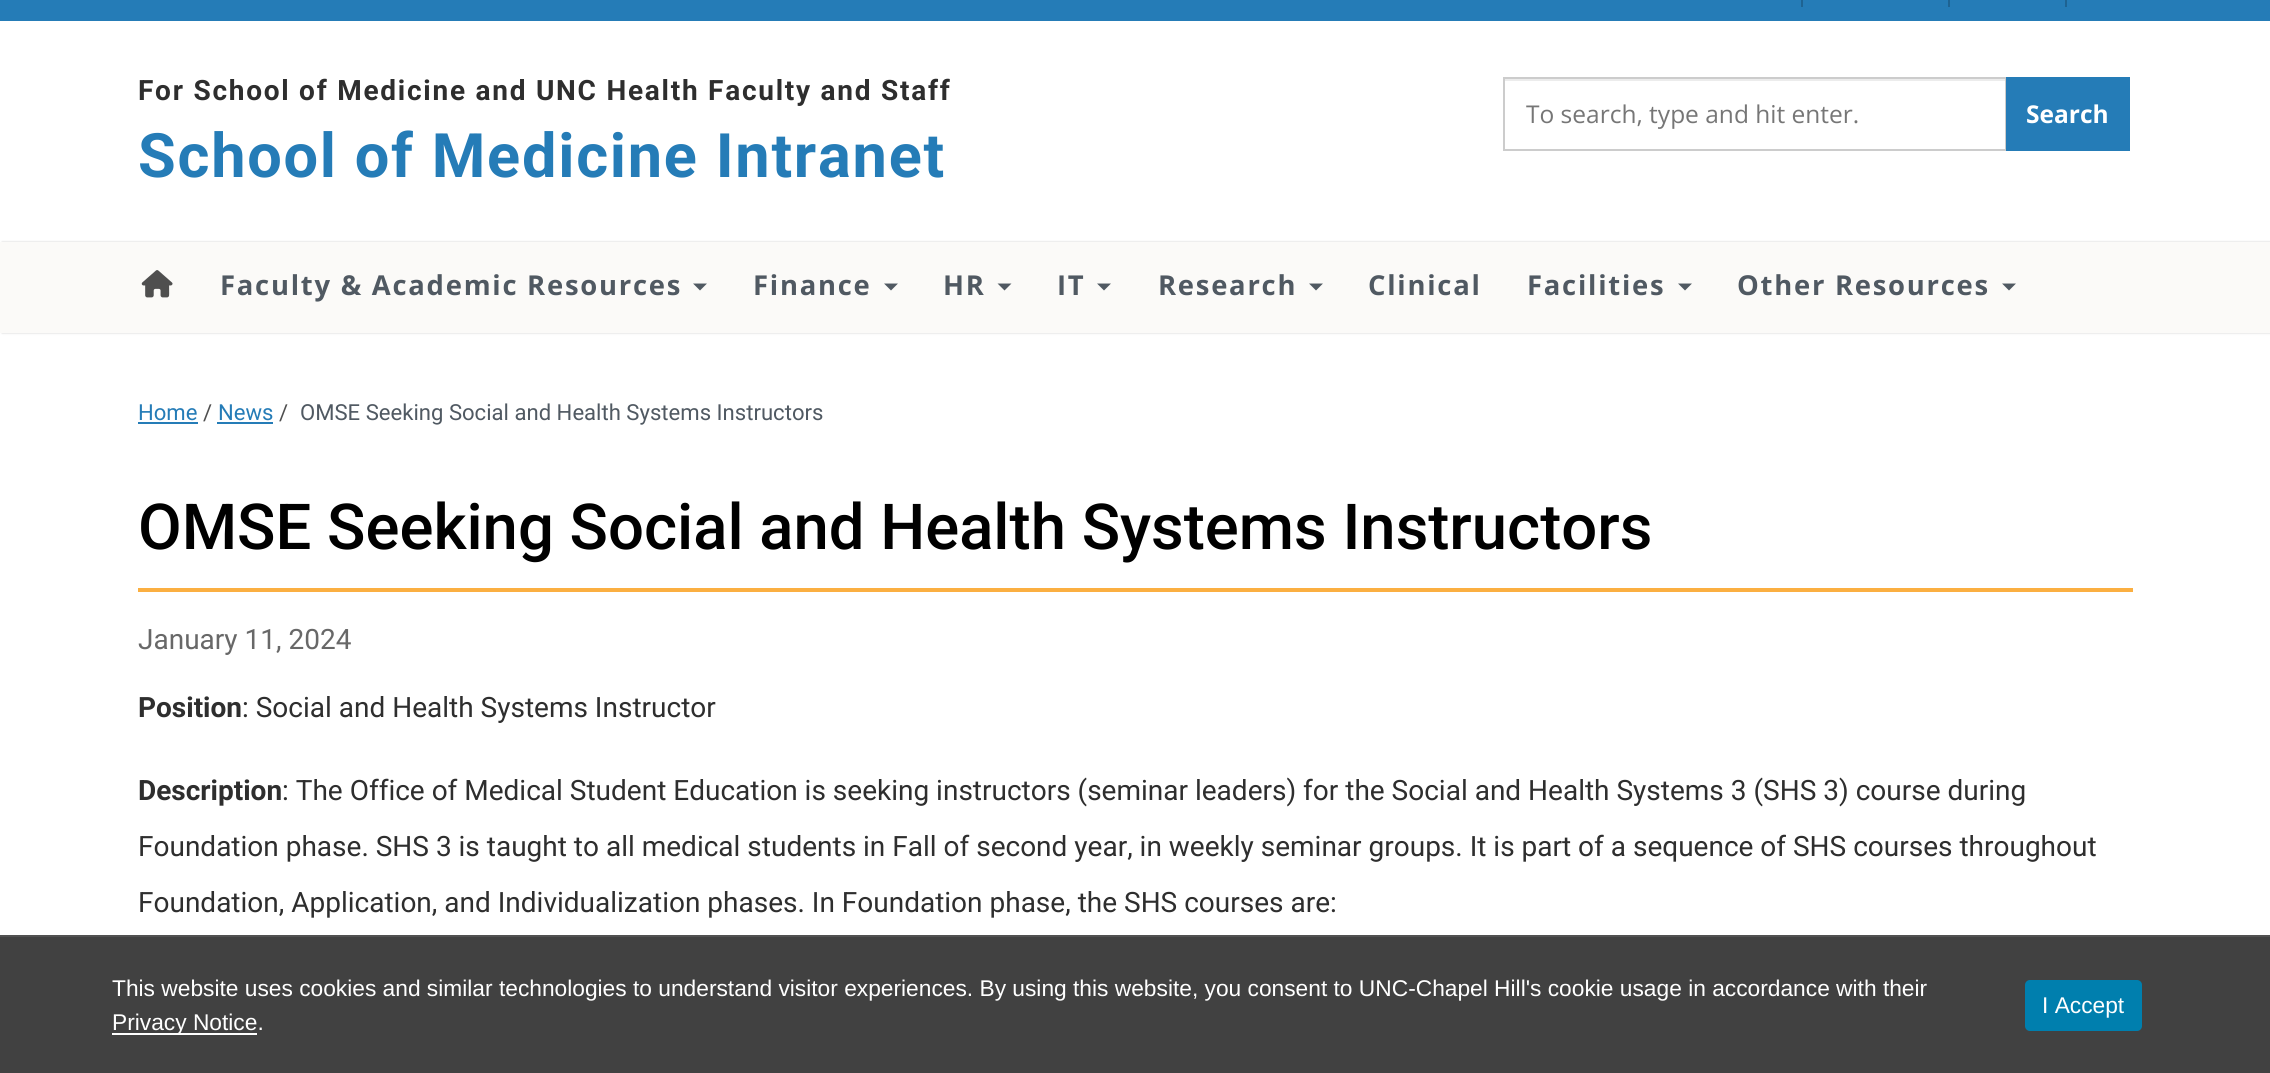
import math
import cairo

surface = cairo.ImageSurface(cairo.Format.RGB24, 2270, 1073)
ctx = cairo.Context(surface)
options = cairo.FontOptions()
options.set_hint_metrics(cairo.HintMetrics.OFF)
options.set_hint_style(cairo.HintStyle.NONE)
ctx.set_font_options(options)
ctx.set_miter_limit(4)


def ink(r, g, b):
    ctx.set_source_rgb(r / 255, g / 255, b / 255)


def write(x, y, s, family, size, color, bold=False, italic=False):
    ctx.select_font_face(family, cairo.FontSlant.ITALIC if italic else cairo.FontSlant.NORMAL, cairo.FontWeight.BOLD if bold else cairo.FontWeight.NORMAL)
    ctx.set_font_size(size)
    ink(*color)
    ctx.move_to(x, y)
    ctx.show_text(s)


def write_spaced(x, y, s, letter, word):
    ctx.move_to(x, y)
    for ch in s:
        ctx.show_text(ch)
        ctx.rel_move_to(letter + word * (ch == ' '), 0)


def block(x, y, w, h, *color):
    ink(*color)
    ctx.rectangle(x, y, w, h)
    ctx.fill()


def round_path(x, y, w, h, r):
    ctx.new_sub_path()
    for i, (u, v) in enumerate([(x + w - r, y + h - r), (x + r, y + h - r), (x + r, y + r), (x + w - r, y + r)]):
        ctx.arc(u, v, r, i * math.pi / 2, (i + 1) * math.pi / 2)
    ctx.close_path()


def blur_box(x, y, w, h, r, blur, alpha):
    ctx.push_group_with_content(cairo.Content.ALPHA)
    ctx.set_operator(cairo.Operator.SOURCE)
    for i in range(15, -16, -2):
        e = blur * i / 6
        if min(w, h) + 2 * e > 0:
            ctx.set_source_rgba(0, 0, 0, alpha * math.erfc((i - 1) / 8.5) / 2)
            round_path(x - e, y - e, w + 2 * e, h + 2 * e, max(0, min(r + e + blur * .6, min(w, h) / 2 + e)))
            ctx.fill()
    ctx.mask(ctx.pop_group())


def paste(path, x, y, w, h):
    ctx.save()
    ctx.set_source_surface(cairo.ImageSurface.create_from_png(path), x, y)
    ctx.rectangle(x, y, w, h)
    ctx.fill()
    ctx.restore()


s1 = dict(family="Open Sans", size=24.5, color=(118, 118, 118))
s2 = dict(family="Open Sans", size=24.5, color=(255, 255, 255), bold=True)
s3 = dict(family="Roboto", size=22.1, color=(37, 124, 183))
s4 = dict(family="Roboto", size=22.1, color=(79, 79, 79))
s5 = dict(family="Roboto", size=22.1, color=(80, 89, 98))
s6 = dict(family="Roboto Medium", size=63.4, color=(0, 0, 0))
s7 = dict(family="Roboto", size=28, color=(104, 104, 104))
s8 = dict(family="Roboto", size=28, color=(46, 46, 46), bold=True)
s9 = dict(family="Roboto", size=28, color=(46, 46, 46))
s10 = dict(family="Liberation Sans", size=22.75, color=(255, 255, 255))

ink(255, 255, 255)
ctx.paint()
block(0, 0, 2270, 21, 37, 124, 183)
block(1801, 0, 2, 7, 30, 99, 146)
block(1948, 0, 2, 7, 30, 99, 146)
block(2065, 0, 2, 7, 30, 99, 146)
ctx.select_font_face("Roboto", cairo.FontSlant.NORMAL, cairo.FontWeight.BOLD)
ctx.set_font_size(28)
ink(46, 46, 46)
write_spaced(138, 100, "For School of Medicine and UNC Health Faculty and Staff", 1.75, 0)
ctx.set_font_size(61.25)
ink(37, 124, 183)
write_spaced(138, 177, "School of Medicine Intranet", 1.75, 0)
block(1505, 79, 501, 2, 236, 236, 236)
ctx.rectangle(1504, 78, 502, 72)
ink(204, 204, 204)
ctx.stroke()
write(1526, 123, "To search, type and hit enter.", **s1)
block(2006, 77, 124, 74, 37, 124, 183)
write(2026, 123, "Search", **s2)
ink(189, 189, 189)
blur_box(2, 242, 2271, 91, 0, 1, 0.75)
block(0, 242, 2270, 91, 251, 250, 248)
paste("pic1.png", 141, 270, 32, 28)
ctx.set_font_size(27.4)
ink(80, 89, 98)
write_spaced(220, 295, "Faculty & Academic Resources", 1.75, 0)
ctx.new_path()
ctx.move_to(693, 283.5)
ctx.line_to(707, 283.5)
ctx.line_to(700, 290.5)
ctx.close_path()
ctx.fill()
write_spaced(753, 295, "Finance", 1.75, 0)
ctx.new_path()
ctx.move_to(884, 283.5)
ctx.line_to(898, 283.5)
ctx.line_to(891, 290.5)
ctx.close_path()
ctx.fill()
write_spaced(943, 295, "HR", 1.75, 0)
ctx.new_path()
ctx.move_to(997.5, 283.5)
ctx.line_to(1011.5, 283.5)
ctx.line_to(1004.5, 290.5)
ctx.close_path()
ctx.fill()
write_spaced(1057, 295, "IT", 1.75, 0)
ctx.new_path()
ctx.move_to(1097, 283.5)
ctx.line_to(1111, 283.5)
ctx.line_to(1104, 290.5)
ctx.close_path()
ctx.fill()
write_spaced(1158, 295, "Research", 1.75, 0)
ctx.new_path()
ctx.move_to(1309, 283.5)
ctx.line_to(1323, 283.5)
ctx.line_to(1316, 290.5)
ctx.close_path()
ctx.fill()
write_spaced(1368, 295, "Clinical", 1.75, 0)
write_spaced(1527, 295, "Facilities", 1.75, 0)
ctx.new_path()
ctx.move_to(1678, 283.5)
ctx.line_to(1692, 283.5)
ctx.line_to(1685, 290.5)
ctx.close_path()
ctx.fill()
write_spaced(1737, 295, "Other Resources", 1.75, 0)
ctx.new_path()
ctx.move_to(2002, 283.5)
ctx.line_to(2016, 283.5)
ctx.line_to(2009, 290.5)
ctx.close_path()
ctx.fill()
write(138, 420, "Home", **s3)
block(138, 422, 60, 2, 37, 124, 183)
write(203, 420, "/", **s4)
write(218, 420, "News", **s3)
block(217, 422, 56, 2, 37, 124, 183)
write(279, 420, "/", **s4)
write(300, 420, "OMSE Seeking Social and Health Systems Instructors", **s5)
block(138, 588, 1995, 4, 251, 175, 65)
write(138, 549, "OMSE Seeking Social and Health Systems Instructors", **s6)
write(138, 649, "January 11, 2024", **s7)
write(138, 717, "Position", **s8)
write(242, 717, ": Social and Health Systems Instructor", **s9)
write(138, 800, "Description", **s8)
write(282, 800, ": The Office of Medical Student Education is seeking instructors (seminar leaders) for the Social and Health Systems 3 (SHS 3) course during", **s9)
write(138, 856, "Foundation phase. SHS 3 is taught to all medical students in Fall of second year, in weekly seminar groups. It is part of a sequence of SHS courses throughout", **s9)
write(138, 912, "Foundation, Application, and Individualization phases. In Foundation phase, the SHS courses are:", **s9)
block(0, 937, 2270, 136, 65, 65, 65)
block(0, 935, 2270, 2, 81, 81, 81)
write(112, 996, "This website uses cookies and similar technologies to understand visitor experiences. By using this website, you consent to UNC-Chapel Hill's cookie usage in accordance with their", **s10)
block(112, 1033, 145, 2, 255, 255, 255)
write(112, 1030, "Privacy Notice.", **s10)
ink(0, 127, 174)
round_path(2025, 980, 117, 51, 5)
ctx.fill()
write(2042, 1013, "I Accept", **s10)
surface.write_to_png("screenshot.png")
